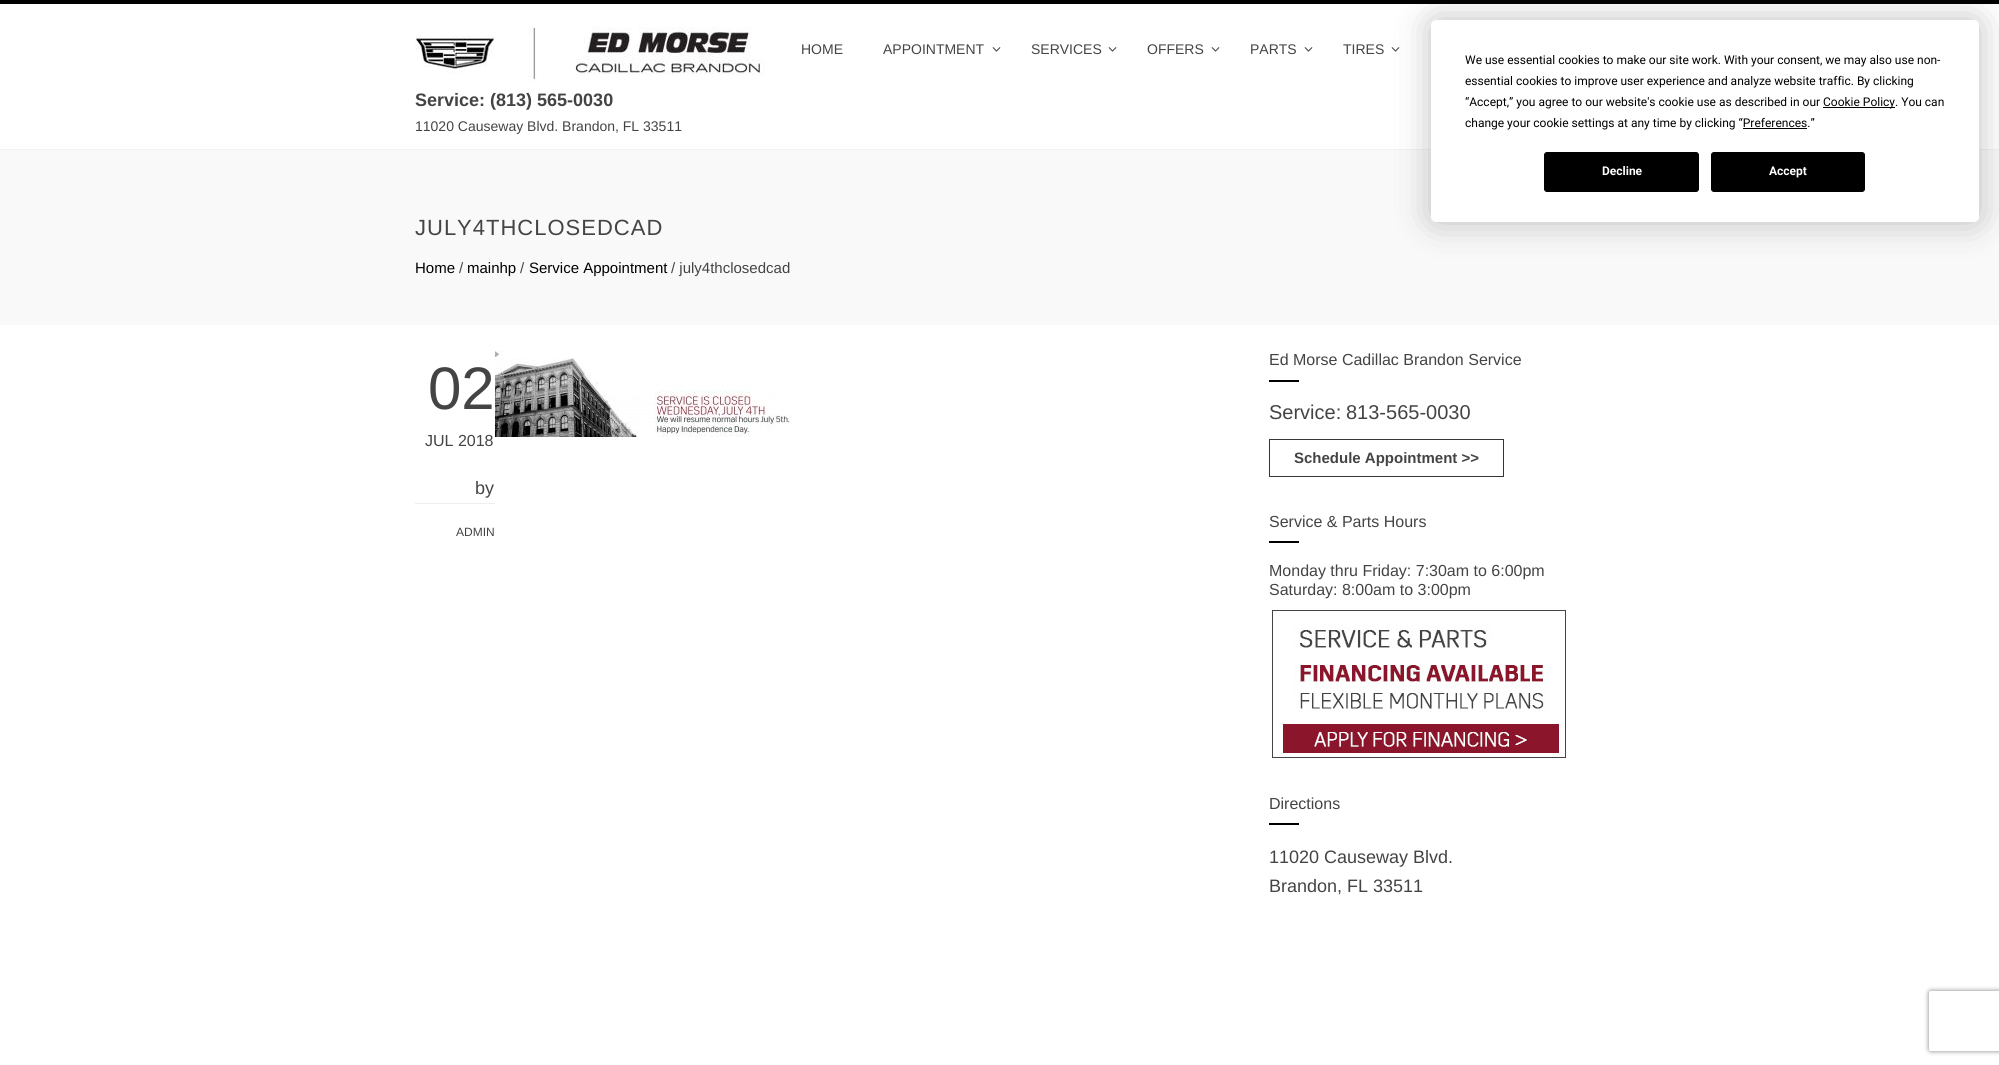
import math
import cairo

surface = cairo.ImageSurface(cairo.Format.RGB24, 1999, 1065)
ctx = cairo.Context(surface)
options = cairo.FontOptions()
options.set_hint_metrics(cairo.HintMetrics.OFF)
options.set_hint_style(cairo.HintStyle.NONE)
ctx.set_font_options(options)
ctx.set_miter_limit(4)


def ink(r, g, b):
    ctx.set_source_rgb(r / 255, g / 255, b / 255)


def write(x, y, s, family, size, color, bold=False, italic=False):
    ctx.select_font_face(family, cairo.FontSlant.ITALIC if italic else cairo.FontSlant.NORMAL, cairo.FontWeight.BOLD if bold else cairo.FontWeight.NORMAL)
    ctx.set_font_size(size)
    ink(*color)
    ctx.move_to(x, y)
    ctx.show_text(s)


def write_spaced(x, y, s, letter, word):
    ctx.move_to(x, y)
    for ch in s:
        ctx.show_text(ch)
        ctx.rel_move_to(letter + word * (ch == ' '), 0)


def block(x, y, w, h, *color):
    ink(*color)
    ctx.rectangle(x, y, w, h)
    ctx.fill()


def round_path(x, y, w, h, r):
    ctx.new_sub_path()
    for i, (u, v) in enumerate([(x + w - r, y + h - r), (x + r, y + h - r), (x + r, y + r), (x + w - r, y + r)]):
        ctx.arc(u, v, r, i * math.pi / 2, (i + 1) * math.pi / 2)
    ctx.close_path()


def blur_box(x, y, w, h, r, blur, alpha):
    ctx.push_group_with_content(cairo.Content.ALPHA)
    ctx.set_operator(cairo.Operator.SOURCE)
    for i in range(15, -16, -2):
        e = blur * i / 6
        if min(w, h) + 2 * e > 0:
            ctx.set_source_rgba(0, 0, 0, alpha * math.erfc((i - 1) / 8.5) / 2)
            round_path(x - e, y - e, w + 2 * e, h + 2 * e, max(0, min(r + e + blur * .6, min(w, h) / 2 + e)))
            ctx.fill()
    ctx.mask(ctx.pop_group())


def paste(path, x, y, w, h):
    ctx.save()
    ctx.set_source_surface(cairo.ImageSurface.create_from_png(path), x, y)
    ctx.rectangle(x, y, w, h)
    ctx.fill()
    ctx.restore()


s1 = dict(family="Liberation Sans", size=14, color=(68, 68, 68))
s2 = dict(family="Liberation Sans", size=18, color=(68, 68, 68), bold=True)
s3 = dict(family="Liberation Sans", size=15, color=(0, 0, 0))
s4 = dict(family="Liberation Sans", size=15, color=(68, 68, 68))
s5 = dict(family="Liberation Sans", size=60, color=(68, 68, 68))
s6 = dict(family="Liberation Sans", size=16, color=(68, 68, 68))
s7 = dict(family="Liberation Sans", size=18, color=(68, 68, 68))
s8 = dict(family="Liberation Sans", size=12, color=(68, 68, 68))
s9 = dict(family="Liberation Sans", size=20, color=(68, 68, 68))
s10 = dict(family="Liberation Sans", size=15, color=(68, 68, 68), bold=True)
s11 = dict(family="Roboto", size=12, color=(0, 0, 0))
s12 = dict(family="Roboto", size=12, color=(255, 255, 255), bold=True)

ink(255, 255, 255)
ctx.paint()
block(0, 0, 1999, 4, 0, 0, 0)
block(0, 149, 1999, 1, 241, 241, 241)
write(801, 54, "HOME", **s1)
write(883, 54, "APPOINTMENT", **s1)
paste("pic1.png", 992, 47, 9, 5)
write(1031, 54, "SERVICES", **s1)
paste("pic1.png", 1108, 47, 9, 5)
write(1147, 54, "OFFERS", **s1)
paste("pic1.png", 1211, 47, 9, 5)
write(1250, 54, "PARTS", **s1)
paste("pic1.png", 1304, 47, 9, 5)
write(1343, 54, "TIRES", **s1)
paste("pic1.png", 1391, 47, 9, 5)
paste("pic2.png", 415, 27, 350, 56)
write(415, 106, "Service: (813) 565-0030", **s2)
write(415, 131, "11020 Causeway Blvd. Brandon, FL 33511", **s1)
block(0, 150, 1999, 175, 249, 249, 249)
ctx.set_font_size(22)
ink(68, 68, 68)
write_spaced(415, 235, "JULY4THCLOSEDCAD", 1, 0)
write(415, 273, "Home", **s3)
write(459, 273, "/", **s4)
write(467, 273, "mainhp", **s3)
write(520, 273, "/", **s4)
write(529, 273, "Service Appointment", **s3)
write(671, 273, "/ july4thclosedcad", **s4)
write(428, 409, "02", **s5)
write(425, 446, "JUL 2018", **s6)
write(475, 494, "by", **s7)
block(415, 503, 80, 1, 238, 238, 238)
write(456, 536, "ADMIN", **s8)
paste("pic3.png", 495, 350, 296, 87)
write(1269, 365, "Ed Morse Cadillac Brandon Service", **s6)
block(1269, 380, 30, 2, 0, 0, 0)
write(1269, 419, "Service:", **s9)
write(1346, 419, "813-565-0030", **s9)
ctx.rectangle(1269.5, 439.5, 234, 37)
ink(54, 54, 54)
ctx.set_line_width(1)
ctx.stroke()
write(1294, 463, "Schedule Appointment >>", **s10)
write(1269, 527, "Service & Parts Hours", **s6)
block(1269, 541, 30, 2, 0, 0, 0)
write(1269, 576, "Monday thru Friday: 7:30am to 6:00pm", **s6)
write(1269, 595, "Saturday: 8:00am to 3:00pm", **s6)
paste("pic4.png", 1270, 610, 296, 149)
write(1269, 809, "Directions", **s6)
block(1269, 823, 30, 2, 0, 0, 0)
write(1269, 863, "11020 Causeway Blvd.", **s7)
write(1269, 892, "Brandon, FL 33511", **s7)
ink(0, 0, 0)
blur_box(1431, 20, 548, 202, 5, 17.5, 0.25)
ink(255, 255, 255)
round_path(1431, 20, 548, 202, 5)
ctx.fill()
write(1465, 64, "We use essential cookies to make our site work. With your consent, we may also use non-", **s11)
write(1465, 85, "essential cookies to improve user experience and analyze website traffic. By clicking", **s11)
write(1465, 106, "“Accept,” you agree to our website's cookie use as described in our", **s11)
block(1823, 107, 72, 1, 0, 0, 0)
write(1823, 106, "Cookie Policy. You can", **s11)
write(1465, 127, "change your cookie settings at any time by clicking “Preferences.”", **s11)
block(1743, 128, 64, 1, 0, 0, 0)
round_path(1544.5, 152.5, 154, 39, 2.5)
ctx.fill_preserve()
ctx.stroke()
write(1602, 175, "Decline", **s12)
ink(0, 0, 0)
round_path(1711.5, 152.5, 153, 39, 2.5)
ctx.fill_preserve()
ctx.stroke()
write(1769, 175, "Accept", **s12)
ctx.save()
ctx.set_fill_rule(cairo.FillRule.EVEN_ODD)
ctx.new_path()
ctx.move_to(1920, 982)
ctx.line_to(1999, 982)
ctx.line_to(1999, 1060)
ctx.line_to(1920, 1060)
ctx.close_path()
ctx.move_to(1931, 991)
ctx.line_to(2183, 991)
ctx.curve_to(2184, 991, 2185, 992, 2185, 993)
ctx.line_to(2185, 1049)
ctx.curve_to(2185, 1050, 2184, 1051, 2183, 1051)
ctx.line_to(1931, 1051)
ctx.curve_to(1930, 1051, 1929, 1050, 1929, 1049)
ctx.line_to(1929, 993)
ctx.curve_to(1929, 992, 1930, 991, 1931, 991)
ctx.close_path()
ctx.clip()
ink(128, 128, 128)
blur_box(1929, 991, 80, 60, 2, 2.5, 1)
ctx.restore()
surface.write_to_png("screenshot.png")
